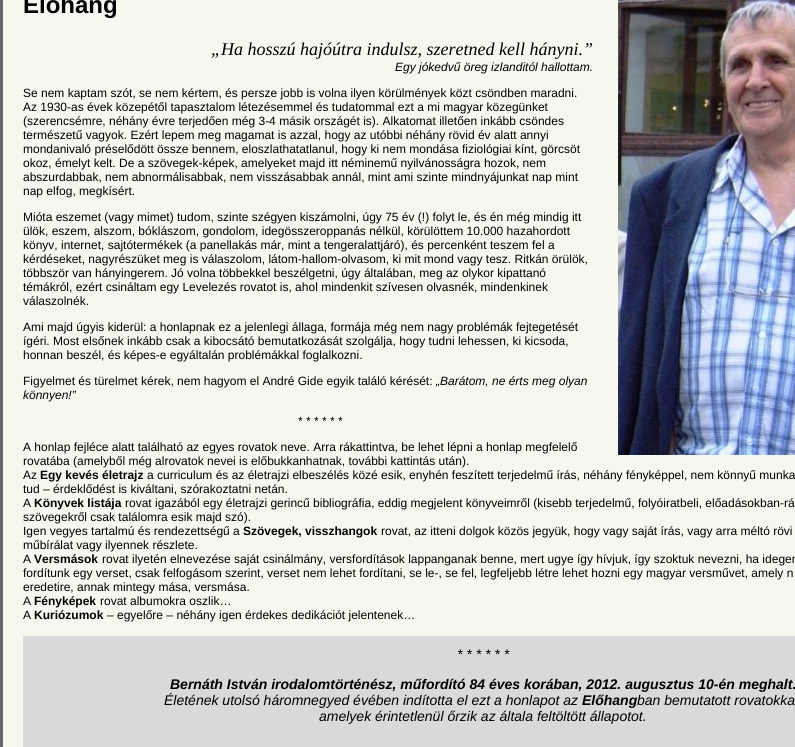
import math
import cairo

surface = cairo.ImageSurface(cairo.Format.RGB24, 795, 747)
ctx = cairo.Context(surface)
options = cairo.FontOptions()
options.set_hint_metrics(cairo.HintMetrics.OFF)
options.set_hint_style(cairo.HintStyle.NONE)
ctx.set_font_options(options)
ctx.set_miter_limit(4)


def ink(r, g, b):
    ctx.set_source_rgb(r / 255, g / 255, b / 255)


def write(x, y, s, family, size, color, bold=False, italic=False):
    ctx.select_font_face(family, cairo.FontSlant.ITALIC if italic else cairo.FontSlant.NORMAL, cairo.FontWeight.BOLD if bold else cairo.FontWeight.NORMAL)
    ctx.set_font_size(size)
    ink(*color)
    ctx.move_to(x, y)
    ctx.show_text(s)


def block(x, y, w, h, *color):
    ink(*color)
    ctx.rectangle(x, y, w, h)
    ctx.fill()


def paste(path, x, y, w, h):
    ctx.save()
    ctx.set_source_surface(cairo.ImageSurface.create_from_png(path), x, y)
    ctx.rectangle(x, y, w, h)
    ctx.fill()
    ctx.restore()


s1 = dict(family="Liberation Sans", size=24, color=(0, 0, 0), bold=True)
s2 = dict(family="Liberation Serif", size=18, color=(0, 0, 0), italic=True)
s3 = dict(family="Liberation Sans", size=12, color=(0, 0, 0), italic=True)
s4 = dict(family="Liberation Sans", size=12, color=(0, 0, 0))
s5 = dict(family="Liberation Sans", size=12, color=(0, 0, 0), bold=True)
s6 = dict(family="Liberation Sans", size=14, color=(0, 0, 0), italic=True)
s7 = dict(family="Liberation Sans", size=14, color=(0, 0, 0), bold=True, italic=True)

ink(255, 255, 255)
ctx.paint()
ctx.rectangle(1.5, -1.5, 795, 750)
ink(102, 102, 102)
ctx.set_line_width(3)
ctx.stroke()
block(3, 0, 792, 747, 245, 248, 239)
write(23, 13, "Előhang", **s1)
write(211, 55, "„Ha hosszú hajóútra indulsz, szeretned kell hányni.”", **s2)
write(395, 71, "Egy jókedvű öreg izlanditól hallottam.", **s3)
write(23, 97, "Se nem kaptam szót, se nem kértem, és persze jobb is volna ilyen körülmények közt csöndben maradni.", **s4)
write(23, 111, "Az 1930-as évek közepétől tapasztalom létezésemmel és tudatommal ezt a mi magyar közegünket", **s4)
write(23, 125, "(szerencsémre, néhány évre terjedően még 3-4 másik országét is). Alkatomat illetően inkább csöndes", **s4)
write(23, 139, "természetű vagyok. Ezért lepem meg magamat is azzal, hogy az utóbbi néhány rövid év alatt annyi", **s4)
write(23, 153, "mondanivaló préselődött össze bennem, eloszlathatatlanul, hogy ki nem mondása fiziológiai kínt, görcsöt", **s4)
write(23, 167, "okoz, émelyt kelt. De a szövegek-képek, amelyeket majd itt néminemű nyilvánosságra hozok, nem", **s4)
write(23, 181, "abszurdabbak, nem abnormálisabbak, nem visszásabbak annál, mint ami szinte mindnyájunkat nap mint", **s4)
write(23, 195, "nap elfog, megkísért.", **s4)
write(23, 221, "Mióta eszemet (vagy mimet) tudom, szinte szégyen kiszámolni, úgy 75 év (!) folyt le, és én még mindig itt", **s4)
write(23, 235, "ülök, eszem, alszom, bóklászom, gondolom, idegösszeroppanás nélkül, körülöttem 10.000 hazahordott", **s4)
write(23, 249, "könyv, internet, sajtótermékek (a panellakás már, mint a tengeralattjáró), és percenként teszem fel a", **s4)
write(23, 263, "kérdéseket, nagyrészüket meg is válaszolom, látom-hallom-olvasom, ki mit mond vagy tesz. Ritkán örülök,", **s4)
write(23, 277, "többször van hányingerem. Jó volna többekkel beszélgetni, úgy általában, meg az olykor kipattanó", **s4)
write(23, 291, "témákról, ezért csináltam egy Levelezés rovatot is, ahol mindenkit szívesen olvasnék, mindenkinek", **s4)
write(23, 305, "válaszolnék.", **s4)
write(23, 331, "Ami majd úgyis kiderül: a honlapnak ez a jelenlegi állaga, formája még nem nagy problémák fejtegetését", **s4)
write(23, 345, "ígéri. Most elsőnek inkább csak a kibocsátó bemutatkozását szolgálja, hogy tudni lehessen, ki kicsoda,", **s4)
write(23, 359, "honnan beszél, és képes-e egyáltalán problémákkal foglalkozni.", **s4)
write(23, 385, "Figyelmet és türelmet kérek, nem hagyom el André Gide egyik találó kérését:", **s4)
write(436, 385, "„Barátom, ne érts meg olyan", **s3)
write(23, 399, "könnyen!”", **s3)
paste("pic1.png", 618, 0, 177, 455)
write(298, 425, "* * * * * *", **s4)
write(23, 451, "A honlap fejléce alatt található az egyes rovatok neve. Arra rákattintva, be lehet lépni a honlap megfelelő", **s4)
write(23, 465, "rovatába (amelyből még alrovatok nevei is előbukkanhatnak, további kattintás után).", **s4)
write(23, 479, "Az", **s4)
write(40, 479, "Egy kevés életrajz", **s5)
write(147, 479, "a curriculum és az életrajzi elbeszélés közé esik, enyhén feszített terjedelmű írás, néhány fényképpel, nem könnyű munka", **s4)
write(23, 493, "tud – érdeklődést is kiváltani, szórakoztatni netán.", **s4)
write(23, 507, "A", **s4)
write(34, 507, "Könyvek listája", **s5)
write(125, 507, "rovat igazából egy életrajzi gerincű bibliográfia, eddig megjelent könyveimről (kisebb terjedelmű, folyóiratbeli, előadásokban-rá", **s4)
write(23, 521, "szövegekről csak találomra esik majd szó).", **s4)
write(23, 535, "Igen vegyes tartalmú és rendezettségű a", **s4)
write(243, 535, "Szövegek, visszhangok", **s5)
write(381, 535, "rovat, az itteni dolgok közös jegyük, hogy vagy saját írás, vagy arra méltó rövi", **s4)
write(23, 549, "műbírálat vagy ilyennek részlete.", **s4)
write(23, 563, "A", **s4)
write(34, 563, "Versmások", **s5)
write(102, 563, "rovat ilyetén elnevezése saját csinálmány, versfordítások lappanganak benne, mert ugye így hívjuk, így szoktuk nevezni, ha idegen", **s4)
write(23, 577, "fordítunk egy verset, csak felfogásom szerint, verset nem lehet fordítani, se le-, se fel, legfeljebb létre lehet hozni egy magyar versművet, amely n", **s4)
write(23, 591, "eredetire, annak mintegy mása, versmása.", **s4)
write(23, 605, "A", **s4)
write(34, 605, "Fényképek", **s5)
write(100, 605, "rovat albumokra oszlik…", **s4)
write(23, 619, "A", **s4)
write(34, 619, "Kuriózumok", **s5)
write(107, 619, "– egyelőre – néhány igen érdekes dedikációt jelentenek…", **s4)
block(23, 636, 772, 111, 217, 217, 217)
write(457, 659, "* * * * * *", **s6)
write(170, 689, "Bernáth István irodalomtörténész, műfordító 84 éves korában, 2012. augusztus 10-én meghalt.", **s7)
write(164, 705, "Életének utolsó háromnegyed évében indította el ezt a honlapot az", **s6)
write(582, 705, "Előhang", **s7)
write(637, 705, "ban bemutatott rovatokka", **s6)
write(319, 721, "amelyek érintetlenül őrzik az általa feltöltött állapotot.", **s6)
surface.write_to_png("screenshot.png")
